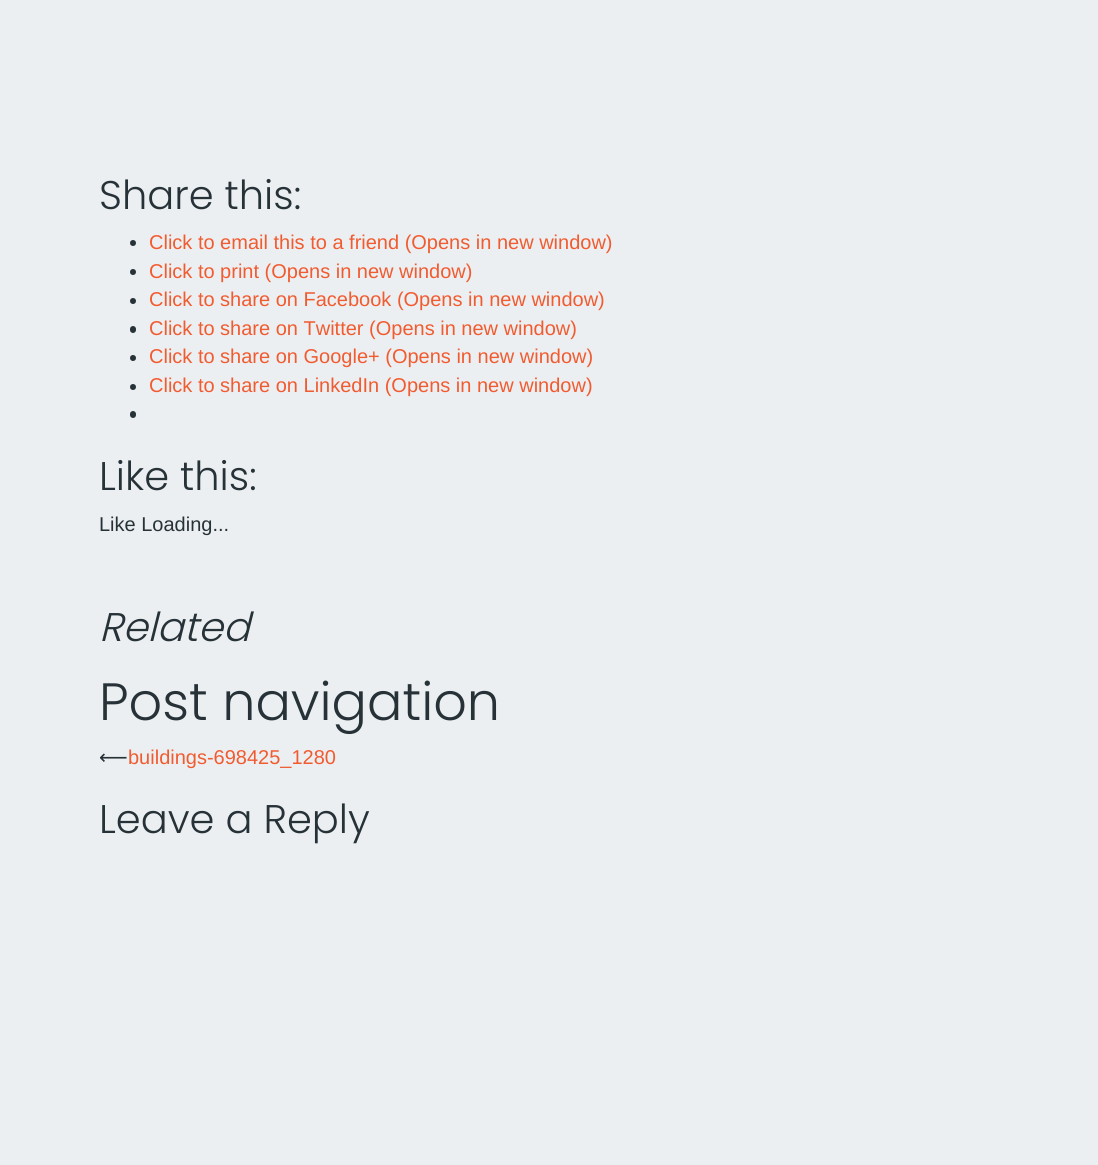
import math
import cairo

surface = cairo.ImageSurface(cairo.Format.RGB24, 1098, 1165)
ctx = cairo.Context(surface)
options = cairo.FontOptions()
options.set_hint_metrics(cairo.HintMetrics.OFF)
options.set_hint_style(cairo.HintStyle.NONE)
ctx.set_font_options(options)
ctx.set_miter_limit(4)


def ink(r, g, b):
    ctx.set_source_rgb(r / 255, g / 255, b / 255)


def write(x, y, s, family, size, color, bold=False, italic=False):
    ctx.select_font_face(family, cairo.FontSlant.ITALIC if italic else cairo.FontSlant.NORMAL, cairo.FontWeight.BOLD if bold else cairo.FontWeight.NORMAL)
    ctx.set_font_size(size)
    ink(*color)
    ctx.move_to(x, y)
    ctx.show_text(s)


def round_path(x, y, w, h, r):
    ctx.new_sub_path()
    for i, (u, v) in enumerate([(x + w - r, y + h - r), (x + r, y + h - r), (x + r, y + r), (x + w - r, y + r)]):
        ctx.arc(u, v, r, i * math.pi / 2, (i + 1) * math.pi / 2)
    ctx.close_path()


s1 = dict(family="Poppins Light", size=40, color=(38, 50, 56))
s2 = dict(family="Liberation Sans", size=20, color=(241, 91, 48))
s3 = dict(family="Liberation Sans", size=20, color=(38, 50, 56))
s4 = dict(family="Poppins Light", size=40, color=(38, 50, 56), italic=True)
s5 = dict(family="Poppins Light", size=52.5, color=(38, 50, 56))
s6 = dict(family="DejaVu Sans", size=20, color=(38, 50, 56))

ink(236, 239, 241)
ctx.paint()
write(99, 209, "Share this:", **s1)
ctx.new_path()
ctx.arc(133, 243, 3, 0, 2 * math.pi)
ctx.fill()
write(149, 249, "Click to email this to a friend (Opens in new window)", **s2)
ink(38, 50, 56)
ctx.new_path()
ctx.arc(133, 272, 3, 0, 2 * math.pi)
ctx.fill()
write(149, 278, "Click to print (Opens in new window)", **s2)
ink(38, 50, 56)
ctx.new_path()
ctx.arc(133, 301, 3, 0, 2 * math.pi)
ctx.fill()
write(149, 306, "Click to share on Facebook (Opens in new window)", **s2)
ink(38, 50, 56)
round_path(130, 326, 6, 7, 3)
ctx.fill()
write(149, 335, "Click to share on Twitter (Opens in new window)", **s2)
ink(38, 50, 56)
ctx.new_path()
ctx.arc(133, 358, 3, 0, 2 * math.pi)
ctx.fill()
write(149, 363, "Click to share on Google+ (Opens in new window)", **s2)
ink(38, 50, 56)
ctx.new_path()
ctx.arc(133, 387, 3, 0, 2 * math.pi)
ctx.fill()
write(149, 392, "Click to share on LinkedIn (Opens in new window)", **s2)
ink(38, 50, 56)
round_path(130, 411, 6, 7, 3)
ctx.fill()
write(99, 490, "Like this:", **s1)
write(99, 531, "Like Loading...", **s3)
write(99, 641, "Related", **s4)
write(99, 720, "Post navigation", **s5)
write(99, 764, "⟵", **s6)
write(128, 764, "buildings-698425_1280", **s2)
write(99, 833, "Leave a Reply", **s1)
surface.write_to_png("screenshot.png")
